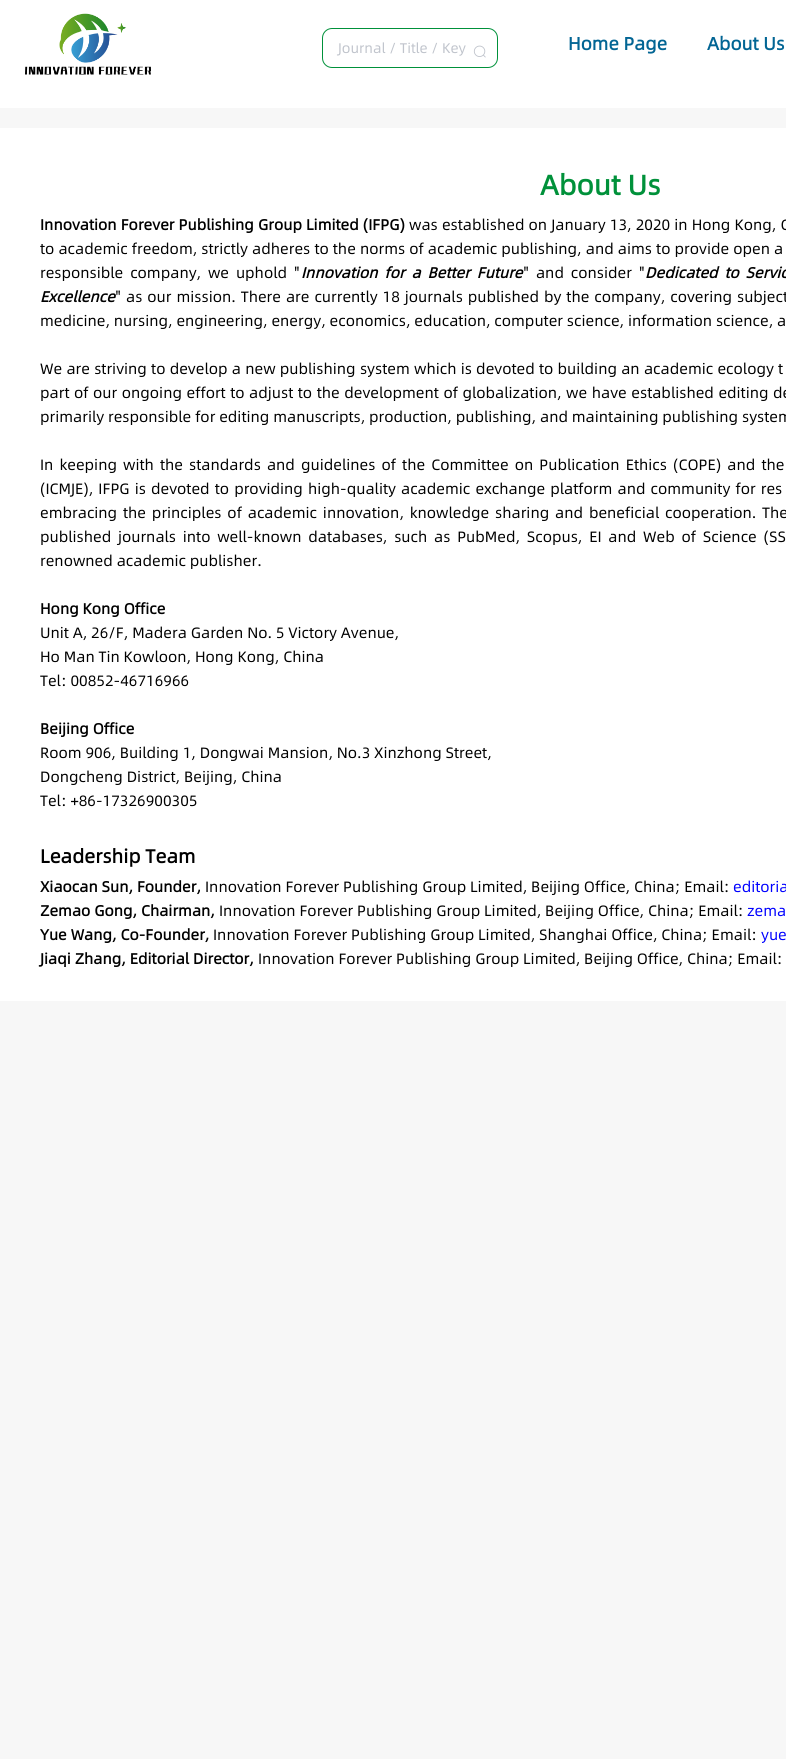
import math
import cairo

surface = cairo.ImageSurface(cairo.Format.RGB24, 786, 1759)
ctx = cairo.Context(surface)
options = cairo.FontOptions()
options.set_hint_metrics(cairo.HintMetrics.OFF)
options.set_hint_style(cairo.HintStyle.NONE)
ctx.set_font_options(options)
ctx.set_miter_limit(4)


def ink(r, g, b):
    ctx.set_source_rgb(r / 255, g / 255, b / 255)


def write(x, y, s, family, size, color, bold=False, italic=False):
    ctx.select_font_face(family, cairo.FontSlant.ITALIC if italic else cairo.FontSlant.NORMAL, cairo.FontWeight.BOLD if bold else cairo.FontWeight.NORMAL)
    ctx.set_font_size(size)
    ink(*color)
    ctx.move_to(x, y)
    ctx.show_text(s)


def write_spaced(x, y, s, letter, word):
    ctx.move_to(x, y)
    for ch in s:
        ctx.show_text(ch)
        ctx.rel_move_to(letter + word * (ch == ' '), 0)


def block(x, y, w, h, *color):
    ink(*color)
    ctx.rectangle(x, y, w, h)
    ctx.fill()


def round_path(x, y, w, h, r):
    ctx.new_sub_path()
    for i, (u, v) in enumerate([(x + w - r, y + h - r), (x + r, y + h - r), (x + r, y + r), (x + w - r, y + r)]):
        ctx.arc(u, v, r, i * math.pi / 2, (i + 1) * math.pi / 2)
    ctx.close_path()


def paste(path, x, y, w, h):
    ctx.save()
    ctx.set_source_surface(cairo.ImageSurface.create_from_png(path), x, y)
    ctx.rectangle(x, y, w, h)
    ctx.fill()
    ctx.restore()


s1 = dict(family="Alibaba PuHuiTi", size=14, color=(192, 196, 204))
s2 = dict(family="Alibaba PuHuiTi", size=18, color=(2, 101, 148), bold=True)
s3 = dict(family="Alibaba PuHuiTi", size=28, color=(0, 145, 58), bold=True)
s4 = dict(family="Alibaba PuHuiTi", size=15, color=(0, 0, 0), bold=True, italic=True)
s5 = dict(family="Alibaba PuHuiTi", size=15, color=(0, 0, 0))
s6 = dict(family="Alibaba PuHuiTi", size=15, color=(0, 0, 0), bold=True)
s7 = dict(family="Alibaba PuHuiTi", size=19, color=(0, 0, 0), bold=True)
s8 = dict(family="Alibaba PuHuiTi", size=15, color=(0, 0, 255))

ink(247, 247, 247)
ctx.paint()
block(0, 0, 786, 108, 255, 255, 255)
paste("pic1.png", 25, 13, 126, 62)
round_path(322.5, 28.5, 175, 39, 9.5)
ink(0, 145, 58)
ctx.set_line_width(1)
ctx.stroke()
write(338, 53, "Journal / Title / Key", **s1)
paste("pic2.png", 473, 45, 13, 13)
write(568, 50, "Home Page", **s2)
write(707, 50, "About Us", **s2)
block(0, 128, 786, 873, 255, 255, 255)
write(540, 195, "About Us", **s3)
ctx.set_font_size(15)
ink(0, 0, 0)
write_spaced(40, 230, "Innovation Forever Publishing Group Limited (IFPG)", 0, 0.25)
ctx.select_font_face("Alibaba PuHuiTi")
write_spaced(409, 230, "was established on January 13, 2020 in Hong Kong, C", 0, 0.25)
write_spaced(40, 254, "to academic freedom, strictly adheres to the norms of academic publishing, and aims to provide open a", 0, 0.25)
write_spaced(40, 278, "responsible company, we uphold \"", 0, 3)
ctx.select_font_face("Alibaba PuHuiTi", cairo.FontSlant.ITALIC, cairo.FontWeight.BOLD)
write_spaced(301, 278, "Innovation for a Better Future", 0, 3)
ctx.select_font_face("Alibaba PuHuiTi")
write_spaced(523, 278, "\" and consider \"", 0, 3)
ctx.select_font_face("Alibaba PuHuiTi", cairo.FontSlant.ITALIC, cairo.FontWeight.BOLD)
write_spaced(645, 278, "Dedicated to Servic", 0, 3)
write(40, 302, "Excellence", **s4)
ctx.select_font_face("Alibaba PuHuiTi")
write_spaced(115, 302, "\" as our mission. There are currently 18 journals published by the company, covering subject", 0, 1.1)
write(40, 326, "medicine, nursing, engineering, energy, economics, education, computer science, information science, a", **s5)
write_spaced(40, 374, "We are striving to develop a new publishing system which is devoted to building an academic ecology t", 0, 0.4)
write_spaced(40, 398, "part of our ongoing effort to adjust to the development of globalization, we have established editing de", 0, 0.7)
write(40, 422, "primarily responsible for editing manuscripts, production, publishing, and maintaining publishing system", **s5)
write_spaced(40, 470, "In keeping with the standards and guidelines of the Committee on Publication Ethics (COPE) and the", 0, 2.25)
write_spaced(40, 494, "(ICMJE), IFPG is devoted to providing high-quality academic exchange platform and community for res", 0, 1.25)
write_spaced(40, 518, "embracing the principles of academic innovation, knowledge sharing and beneficial cooperation. The", 0, 2)
write_spaced(40, 542, "published journals into well-known databases, such as PubMed, Scopus, EI and Web of Science (SS", 0, 2.9)
write(40, 566, "renowned academic publisher.", **s5)
write(40, 614, "Hong Kong Office", **s6)
write(40, 638, "Unit A, 26/F, Madera Garden No. 5 Victory Avenue,", **s5)
write(40, 662, "Ho Man Tin Kowloon, Hong Kong, China", **s5)
write(40, 686, "Tel: 00852-46716966", **s5)
write(40, 734, "Beijing Office", **s6)
write(40, 758, "Room 906, Building 1, Dongwai Mansion, No.3 Xinzhong Street,", **s5)
write(40, 782, "Dongcheng District, Beijing, China", **s5)
write(40, 806, "Tel: +86-17326900305", **s5)
write(40, 863, "Leadership Team", **s7)
write(40, 892, "Xiaocan Sun, Founder,", **s6)
write(205, 892, "Innovation Forever Publishing Group Limited, Beijing Office, China; Email:", **s5)
write(733, 892, "editoria", **s8)
write(40, 916, "Zemao Gong, Chairman,", **s6)
write(219, 916, "Innovation Forever Publishing Group Limited, Beijing Office, China; Email:", **s5)
write(747, 916, "zema", **s8)
write(40, 940, "Yue Wang, Co-Founder,", **s6)
write(213, 940, "Innovation Forever Publishing Group Limited, Shanghai Office, China; Email:", **s5)
write(761, 940, "yue", **s8)
write(40, 964, "Jiaqi Zhang, Editorial Director,", **s6)
write(258, 964, "Innovation Forever Publishing Group Limited, Beijing Office, China; Email:", **s5)
surface.write_to_png("screenshot.png")
